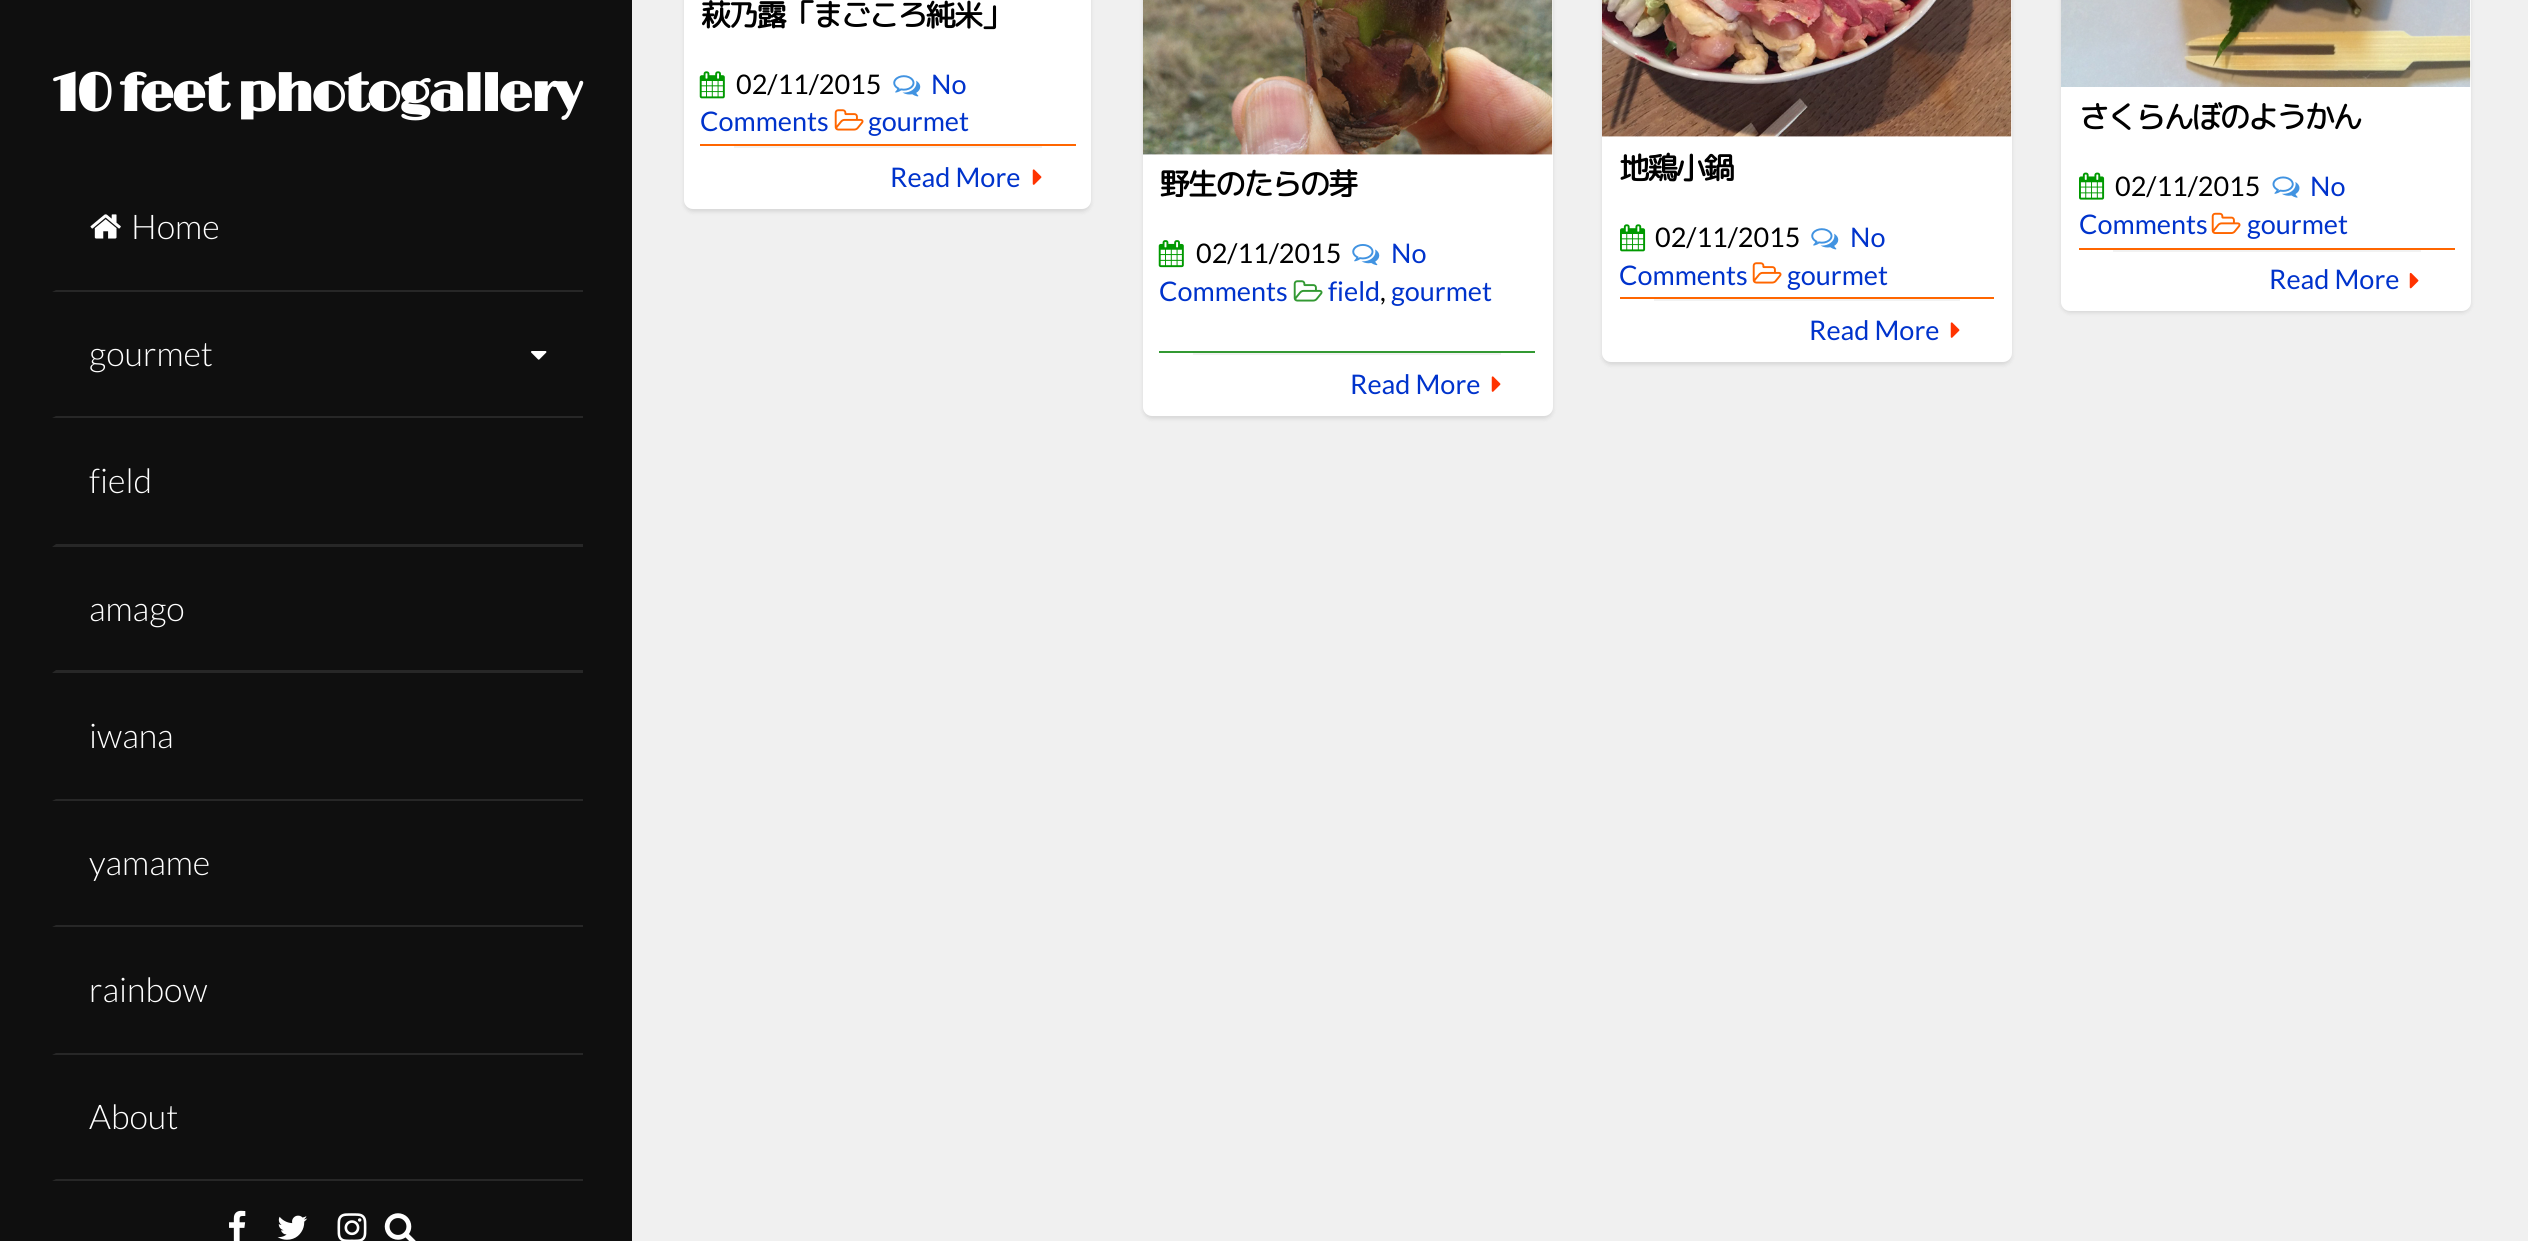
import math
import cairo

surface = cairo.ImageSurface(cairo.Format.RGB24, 2528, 1241)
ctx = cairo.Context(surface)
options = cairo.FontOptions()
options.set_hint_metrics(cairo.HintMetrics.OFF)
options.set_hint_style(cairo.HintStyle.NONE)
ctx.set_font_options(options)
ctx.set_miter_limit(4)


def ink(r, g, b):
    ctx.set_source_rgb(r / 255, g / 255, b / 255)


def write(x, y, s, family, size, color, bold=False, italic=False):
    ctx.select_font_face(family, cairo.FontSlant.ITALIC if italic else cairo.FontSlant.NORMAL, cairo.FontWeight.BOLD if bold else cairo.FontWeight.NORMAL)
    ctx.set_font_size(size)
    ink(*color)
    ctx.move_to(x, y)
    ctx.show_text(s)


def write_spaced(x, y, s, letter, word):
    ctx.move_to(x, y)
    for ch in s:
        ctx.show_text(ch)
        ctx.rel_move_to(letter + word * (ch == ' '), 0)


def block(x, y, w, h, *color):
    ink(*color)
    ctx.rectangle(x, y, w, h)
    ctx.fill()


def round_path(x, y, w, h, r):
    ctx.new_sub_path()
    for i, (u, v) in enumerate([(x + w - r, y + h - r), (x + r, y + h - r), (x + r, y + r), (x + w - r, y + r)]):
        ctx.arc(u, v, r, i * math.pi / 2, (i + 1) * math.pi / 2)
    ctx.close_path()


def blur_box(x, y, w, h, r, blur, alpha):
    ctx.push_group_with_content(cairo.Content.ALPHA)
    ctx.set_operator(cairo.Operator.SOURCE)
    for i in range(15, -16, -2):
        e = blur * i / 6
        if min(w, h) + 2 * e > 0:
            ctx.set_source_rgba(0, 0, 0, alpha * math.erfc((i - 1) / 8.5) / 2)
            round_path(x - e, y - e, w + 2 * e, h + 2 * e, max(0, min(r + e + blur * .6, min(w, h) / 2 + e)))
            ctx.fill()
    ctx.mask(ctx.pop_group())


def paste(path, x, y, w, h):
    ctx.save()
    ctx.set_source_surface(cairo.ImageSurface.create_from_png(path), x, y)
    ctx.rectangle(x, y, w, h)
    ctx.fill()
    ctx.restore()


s1 = dict(family="Lato Light", size=34, color=(255, 255, 255))
s2 = dict(family="Lato", size=27, color=(0, 51, 204))
s3 = dict(family="Lato", size=27, color=(0, 0, 0))

ink(240, 240, 240)
ctx.paint()
block(0, 0, 632, 1241, 15, 15, 15)
ctx.select_font_face("Limelight", cairo.FontSlant.NORMAL, cairo.FontWeight.BOLD)
ctx.set_font_size(54)
ink(255, 255, 255)
write_spaced(53, 111, "10 feet photogallery", -2.25, 0)
ink(39, 39, 39)
ctx.new_path()
ctx.move_to(583, 292)
ctx.line_to(52, 292)
ctx.line_to(56, 290)
ctx.line_to(583, 290)
ctx.close_path()
ctx.fill()
paste("pic1.png", 90, 214, 31, 25)
write(131, 239, "Home", **s1)
ink(39, 39, 39)
ctx.new_path()
ctx.move_to(583, 418)
ctx.line_to(52, 418)
ctx.line_to(56, 416)
ctx.line_to(583, 416)
ctx.close_path()
ctx.fill()
write(89, 366, "gourmet", **s1)
paste("pic2.png", 531, 351, 16, 9)
ink(39, 39, 39)
ctx.new_path()
ctx.move_to(583, 547)
ctx.line_to(52, 547)
ctx.line_to(56, 544)
ctx.line_to(583, 544)
ctx.close_path()
ctx.fill()
write(89, 493, "field", **s1)
ink(39, 39, 39)
ctx.new_path()
ctx.move_to(583, 673)
ctx.line_to(52, 673)
ctx.line_to(56, 670)
ctx.line_to(583, 670)
ctx.close_path()
ctx.fill()
write(89, 621, "amago", **s1)
ink(39, 39, 39)
ctx.new_path()
ctx.move_to(583, 801)
ctx.line_to(52, 801)
ctx.line_to(56, 799)
ctx.line_to(583, 799)
ctx.close_path()
ctx.fill()
write(89, 748, "iwana", **s1)
ink(39, 39, 39)
ctx.new_path()
ctx.move_to(583, 927)
ctx.line_to(52, 927)
ctx.line_to(56, 925)
ctx.line_to(583, 925)
ctx.close_path()
ctx.fill()
write(89, 875, "yamame", **s1)
ink(39, 39, 39)
ctx.new_path()
ctx.move_to(583, 1055)
ctx.line_to(52, 1055)
ctx.line_to(56, 1053)
ctx.line_to(583, 1053)
ctx.close_path()
ctx.fill()
write(89, 1002, "rainbow", **s1)
ink(39, 39, 39)
ctx.new_path()
ctx.move_to(583, 1181)
ctx.line_to(52, 1181)
ctx.line_to(56, 1179)
ctx.line_to(583, 1179)
ctx.close_path()
ctx.fill()
write(89, 1129, "About", **s1)
paste("pic3.png", 229, 1210, 17, 31)
paste("pic4.png", 277, 1215, 31, 25)
paste("pic5.png", 337, 1213, 30, 28)
paste("pic6.png", 384, 1213, 32, 28)
ink(0, 0, 0)
blur_box(684, -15, 407, 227, 9, 2, 0.1)
ink(255, 255, 255)
round_path(684, -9, 407, 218, 9)
ctx.fill()
block(700, 144, 376, 2, 255, 102, 0)
ctx.select_font_face("Rounded Mplus 1c", cairo.FontSlant.NORMAL, cairo.FontWeight.BOLD)
ctx.set_font_size(30.4)
ink(0, 0, 0)
write_spaced(700, 26, "萩乃露「まごころ純米」", -2.25, 0)
paste("pic7.png", 893, 75, 28, 22)
write(931, 94, "No", **s2)
write(700, 131, "Comments", **s2)
paste("pic8.png", 699, 71, 26, 28)
write(736, 94, "02/11/2015", **s3)
paste("pic9.png", 834, 109, 30, 22)
write(868, 131, "gourmet", **s2)
block(734, 146, 308, 2, 242, 242, 242)
write(890, 187, "Read More", **s2)
paste("pic10.png", 1032, 169, 10, 16)
ink(0, 0, 0)
blur_box(1143, -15, 410, 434, 9, 2, 0.1)
ink(255, 255, 255)
round_path(1143, -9, 410, 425, 9)
ctx.fill()
paste("pic11.png", 1143, 0, 410, 155)
block(1159, 351, 376, 2, 51, 153, 51)
ctx.select_font_face("Rounded Mplus 1c", cairo.FontSlant.NORMAL, cairo.FontWeight.BOLD)
ctx.set_font_size(30.4)
ink(0, 0, 0)
write_spaced(1159, 195, "野生のたらの芽", -2.25, 0)
paste("pic12.png", 1352, 244, 28, 22)
write(1391, 263, "No", **s2)
write(1159, 301, "Comments", **s2)
paste("pic13.png", 1158, 240, 26, 28)
write(1196, 263, "02/11/2015", **s3)
paste("pic14.png", 1293, 280, 30, 22)
write(1328, 301, "field", **s2)
write(1380, 301, ",", **s3)
write(1391, 301, "gourmet", **s2)
block(1193, 353, 308, 2, 242, 242, 242)
write(1350, 394, "Read More", **s2)
paste("pic10.png", 1491, 376, 10, 16)
ink(0, 0, 0)
blur_box(1602, -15, 410, 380, 9, 2, 0.1)
ink(255, 255, 255)
round_path(1602, -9, 410, 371, 9)
ctx.fill()
paste("pic15.png", 1602, 0, 410, 137)
block(1620, 297, 374, 2, 255, 102, 0)
ctx.select_font_face("Rounded Mplus 1c", cairo.FontSlant.NORMAL, cairo.FontWeight.BOLD)
ctx.set_font_size(30.4)
ink(0, 0, 0)
write_spaced(1619, 179, "地鶏小鍋", -2.25, 0)
paste("pic7.png", 1811, 228, 28, 22)
write(1850, 247, "No", **s2)
write(1619, 285, "Comments", **s2)
paste("pic16.png", 1620, 224, 26, 28)
write(1655, 247, "02/11/2015", **s3)
paste("pic9.png", 1752, 262, 30, 22)
write(1787, 285, "gourmet", **s2)
block(1654, 299, 306, 2, 242, 242, 242)
write(1809, 340, "Read More", **s2)
paste("pic10.png", 1950, 322, 10, 16)
ink(0, 0, 0)
blur_box(2061, -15, 410, 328, 9, 2, 0.1)
ink(255, 255, 255)
round_path(2061, -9, 410, 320, 9)
ctx.fill()
paste("pic17.png", 2061, 0, 410, 87)
block(2079, 248, 376, 2, 255, 102, 0)
ctx.select_font_face("Rounded Mplus 1c", cairo.FontSlant.NORMAL, cairo.FontWeight.BOLD)
ctx.set_font_size(30.4)
ink(0, 0, 0)
write_spaced(2079, 128, "さくらんぼのようかん", -2.25, 0)
paste("pic18.png", 2272, 176, 28, 22)
write(2310, 196, "No", **s2)
write(2079, 234, "Comments", **s2)
paste("pic19.png", 2079, 172, 26, 28)
write(2115, 196, "02/11/2015", **s3)
paste("pic20.png", 2211, 212, 30, 22)
write(2247, 234, "gourmet", **s2)
block(2113, 250, 308, 2, 242, 242, 242)
write(2269, 289, "Read More", **s2)
paste("pic21.png", 2409, 272, 10, 17)
surface.write_to_png("screenshot.png")
